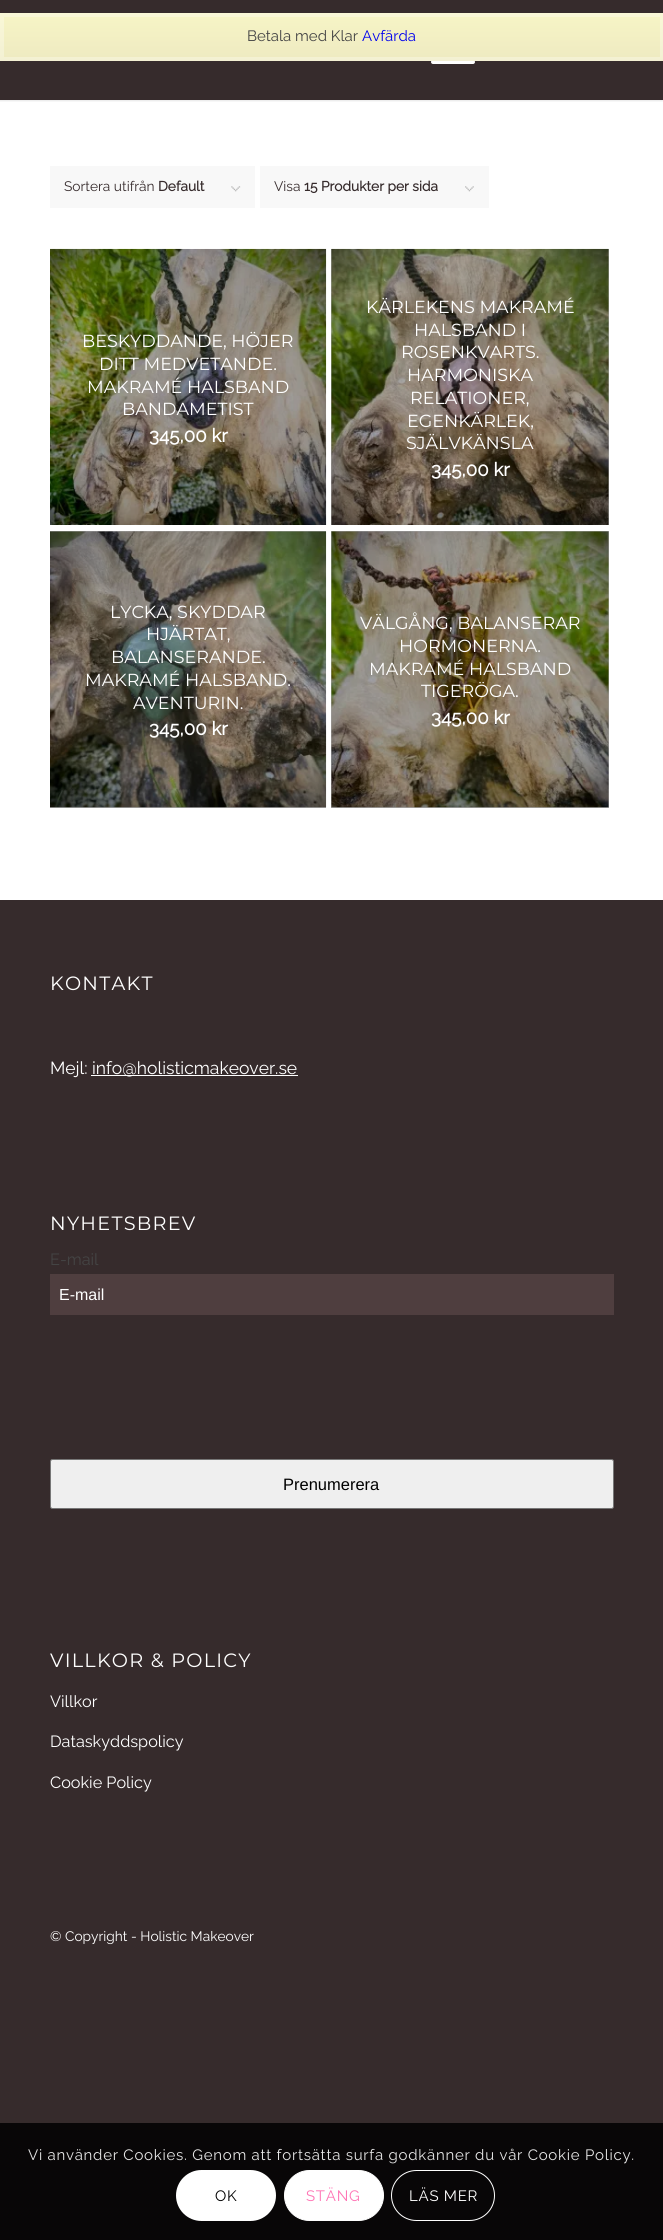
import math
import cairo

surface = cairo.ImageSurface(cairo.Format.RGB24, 663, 2240)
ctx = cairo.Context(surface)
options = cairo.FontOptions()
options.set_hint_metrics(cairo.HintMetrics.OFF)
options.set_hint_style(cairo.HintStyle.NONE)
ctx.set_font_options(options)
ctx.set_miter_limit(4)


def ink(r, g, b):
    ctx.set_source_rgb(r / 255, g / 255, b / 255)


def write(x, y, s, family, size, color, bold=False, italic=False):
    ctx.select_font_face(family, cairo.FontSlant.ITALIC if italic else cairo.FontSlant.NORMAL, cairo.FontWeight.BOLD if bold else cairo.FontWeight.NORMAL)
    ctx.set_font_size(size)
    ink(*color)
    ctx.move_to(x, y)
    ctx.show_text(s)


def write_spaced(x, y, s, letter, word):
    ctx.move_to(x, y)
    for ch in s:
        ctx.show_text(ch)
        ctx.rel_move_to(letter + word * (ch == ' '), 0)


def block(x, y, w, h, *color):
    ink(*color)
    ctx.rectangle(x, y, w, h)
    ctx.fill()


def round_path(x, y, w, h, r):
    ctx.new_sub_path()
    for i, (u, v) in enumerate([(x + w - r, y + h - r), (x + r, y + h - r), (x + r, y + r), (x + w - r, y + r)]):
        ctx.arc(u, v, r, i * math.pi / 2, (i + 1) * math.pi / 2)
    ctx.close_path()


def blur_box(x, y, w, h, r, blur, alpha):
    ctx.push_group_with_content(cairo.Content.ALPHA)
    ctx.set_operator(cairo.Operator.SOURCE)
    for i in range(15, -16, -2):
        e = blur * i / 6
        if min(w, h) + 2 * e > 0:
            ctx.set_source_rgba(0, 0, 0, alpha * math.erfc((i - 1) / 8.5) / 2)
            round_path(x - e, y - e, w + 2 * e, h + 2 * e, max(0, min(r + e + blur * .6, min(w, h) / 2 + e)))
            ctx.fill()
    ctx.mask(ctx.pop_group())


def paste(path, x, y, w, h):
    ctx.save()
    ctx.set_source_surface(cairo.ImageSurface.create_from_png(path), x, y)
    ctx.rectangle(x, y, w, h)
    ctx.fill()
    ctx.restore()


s1 = dict(family="Raleway Thin", size=15, color=(68, 68, 68))
s2 = dict(family="Raleway Thin", size=15, color=(0, 0, 238))
s3 = dict(family="Raleway Thin", size=13.75, color=(54, 43, 44))
s4 = dict(family="Raleway", size=13.75, color=(54, 43, 44), bold=True)
s5 = dict(family="Montserrat Thin", size=17.5, color=(255, 255, 255))
s6 = dict(family="Raleway", size=18.75, color=(255, 255, 255), bold=True)
s7 = dict(family="Raleway Thin", size=17.5, color=(255, 255, 255))
s8 = dict(family="Raleway Thin", size=16.25, color=(68, 68, 68))
s9 = dict(family="Liberation Sans", size=16, color=(255, 255, 255))
s10 = dict(family="Liberation Sans", size=16.5, color=(0, 0, 0))
s11 = dict(family="Raleway Thin", size=16.25, color=(255, 255, 255))
s12 = dict(family="Raleway Thin", size=13.75, color=(255, 255, 255))

ink(54, 43, 44)
ctx.paint()
block(0, 100, 663, 800, 255, 255, 255)
ctx.save()
ctx.rectangle(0, 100, 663, 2)
ctx.clip()
ink(0, 0, 0)
blur_box(-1, -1, 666, 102, 0, 1, 0.1)
ctx.restore()
round_path(431, 60, 44, 4, 2)
ctx.fill()
gradient = cairo.LinearGradient(332, 12, 332, 61)
gradient.add_color_stop_rgba(0, 0.969, 0.961, 0.776, 1)
gradient.add_color_stop_rgba(1, 0.933, 0.918, 0.757, 1)
ctx.set_source(gradient)
ctx.rectangle(0, 13, 663, 48)
ctx.fill()
ctx.rectangle(2, 15, 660, 44)
ctx.set_source_rgba(1, 1, 1, 0.3)
ctx.set_line_width(4)
ctx.stroke()
write(247, 41, "Betala med Klar", **s1)
write(362, 41, "Avfärda", **s2)
block(331, 531, 278, 277, 166, 166, 166)
block(50, 531, 276, 277, 166, 166, 166)
block(331, 249, 278, 276, 166, 166, 166)
block(50, 166, 205, 42, 248, 248, 248)
paste("pic1.png", 231, 186, 10, 6)
write(64, 191, "Sortera utifrån", **s3)
write(158, 191, "Default", **s4)
block(260, 166, 229, 42, 248, 248, 248)
paste("pic2.png", 465, 186, 9, 6)
write(274, 191, "Visa", **s3)
write(304, 191, "15 Produkter per sida", **s4)
paste("pic3.png", 50, 248, 277, 277)
write(82, 347, "BESKYDDANDE, HÖJER", **s5)
write(99, 370, "DITT MEDVETANDE.", **s5)
write(87, 393, "MAKRAMÉ HALSBAND", **s5)
write(122, 415, "BANDAMETIST", **s5)
write(149, 442, "345,00 kr", **s6)
paste("pic4.png", 331, 248, 278, 277)
write(366, 313, "KÄRLEKENS MAKRAMÉ", **s5)
write(414, 336, "HALSBAND I", **s5)
write(401, 358, "ROSENKVARTS.", **s5)
write(407, 381, "HARMONISKA", **s5)
write(410, 404, "RELATIONER,", **s5)
write(407, 427, "EGENKÄRLEK,", **s5)
write(406, 449, "SJÄLVKÄNSLA", **s5)
write(431, 476, "345,00 kr", **s6)
paste("pic5.png", 50, 531, 277, 277)
write(110, 618, "LYCKA, SKYDDAR", **s5)
write(146, 640, "HJÄRTAT,", **s5)
write(111, 663, "BALANSERANDE.", **s5)
write(85, 686, "MAKRAMÉ HALSBAND.", **s5)
write(133, 709, "AVENTURIN.", **s5)
write(149, 735, "345,00 kr", **s6)
paste("pic6.png", 331, 531, 278, 277)
write(360, 629, "VÄLGÅNG, BALANSERAR", **s5)
write(399, 652, "HORMONERNA.", **s5)
write(369, 675, "MAKRAMÉ HALSBAND", **s5)
write(421, 697, "TIGERÖGA.", **s5)
write(431, 724, "345,00 kr", **s6)
ctx.select_font_face("Montserrat Thin")
ctx.set_font_size(19.25)
write_spaced(50, 990, "KONTAKT", 1.25, 0)
write(50, 1074, "Mejl:", **s7)
block(91, 1075, 207, 1, 255, 255, 255)
write(92, 1074, "info@holisticmakeover.se", **s7)
ctx.select_font_face("Montserrat Thin")
ctx.set_font_size(19.25)
write_spaced(50, 1230, "NYHETSBREV", 1.25, 0)
write(50, 1265, "E-mail", **s8)
block(50, 1274, 564, 41, 79, 62, 63)
write(59, 1300, "E-mail", **s9)
ink(239, 239, 239)
round_path(50.5, 1459.5, 563, 49, 2)
ctx.fill_preserve()
ink(118, 118, 118)
ctx.set_line_width(1)
ctx.stroke()
write(283, 1490, "Prenumerera", **s10)
ctx.select_font_face("Montserrat Thin")
ctx.set_font_size(19.25)
ink(255, 255, 255)
write_spaced(50, 1667, "VILLKOR & POLICY", 1.25, 0)
write(50, 1707, "Villkor", **s11)
write(50, 1747, "Dataskyddspolicy", **s11)
write(50, 1788, "Cookie Policy", **s11)
write(50, 1941, "© Copyright - Holistic Makeover", **s12)
block(0, 2123, 663, 117, 8, 6, 7)
ctx.set_font_size(15)
ink(230, 230, 230)
write_spaced(28, 2160, "Vi använder Cookies. Genom att fortsätta surfa godkänner du vår Cookie Policy.", 0.75, 0)
ink(255, 255, 255)
round_path(176, 2170, 100, 51, 25.5)
ctx.fill()
ink(0, 0, 0)
write_spaced(215, 2201, "OK", 0.75, 0)
ink(255, 255, 255)
round_path(284.5, 2170.5, 99, 50, 25)
ctx.fill_preserve()
ctx.stroke()
ink(255, 117, 181)
write_spaced(306, 2201, "STÄNG", 0.75, 0)
round_path(391.5, 2170.5, 103, 50, 25)
ink(255, 255, 255)
ctx.stroke()
write_spaced(409, 2201, "LÄS MER", 0.75, 0)
surface.write_to_png("screenshot.png")
